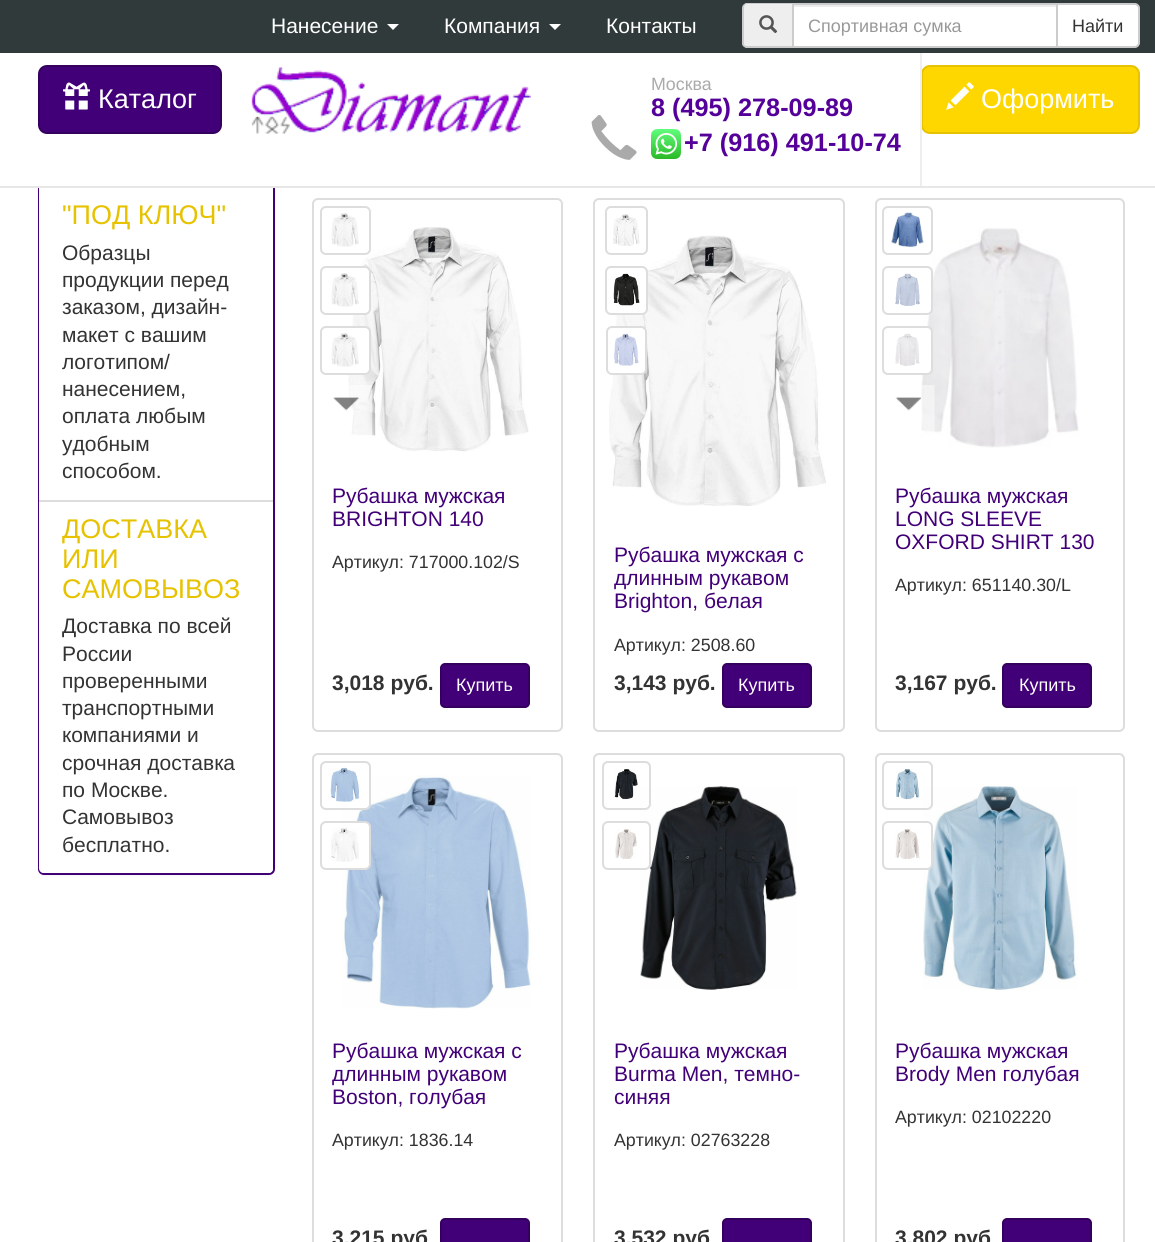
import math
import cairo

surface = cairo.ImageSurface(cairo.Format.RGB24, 1155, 1242)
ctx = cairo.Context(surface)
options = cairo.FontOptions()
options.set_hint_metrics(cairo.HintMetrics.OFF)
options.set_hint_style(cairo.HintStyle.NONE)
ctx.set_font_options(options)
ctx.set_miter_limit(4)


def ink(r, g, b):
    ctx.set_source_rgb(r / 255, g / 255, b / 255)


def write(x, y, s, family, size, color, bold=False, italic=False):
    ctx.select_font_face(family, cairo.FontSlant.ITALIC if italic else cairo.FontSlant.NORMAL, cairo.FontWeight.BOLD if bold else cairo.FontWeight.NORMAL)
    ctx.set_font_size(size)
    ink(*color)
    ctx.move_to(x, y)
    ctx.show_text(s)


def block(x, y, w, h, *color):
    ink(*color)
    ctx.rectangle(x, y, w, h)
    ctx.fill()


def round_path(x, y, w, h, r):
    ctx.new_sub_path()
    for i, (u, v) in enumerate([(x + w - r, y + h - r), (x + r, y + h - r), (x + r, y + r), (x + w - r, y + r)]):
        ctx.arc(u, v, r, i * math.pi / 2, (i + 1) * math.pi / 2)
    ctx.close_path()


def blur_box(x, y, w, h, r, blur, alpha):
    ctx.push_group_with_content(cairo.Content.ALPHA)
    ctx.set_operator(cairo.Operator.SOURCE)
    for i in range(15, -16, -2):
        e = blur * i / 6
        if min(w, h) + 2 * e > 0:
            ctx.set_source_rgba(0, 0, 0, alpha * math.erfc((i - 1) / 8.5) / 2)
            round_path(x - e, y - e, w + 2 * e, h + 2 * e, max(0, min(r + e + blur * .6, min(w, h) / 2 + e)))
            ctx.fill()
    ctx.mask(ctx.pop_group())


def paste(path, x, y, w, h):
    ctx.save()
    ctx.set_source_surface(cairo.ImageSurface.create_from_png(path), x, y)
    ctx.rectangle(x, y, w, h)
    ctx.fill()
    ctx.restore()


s1 = dict(family="Liberation Sans", size=21, color=(255, 255, 255))
s2 = dict(family="Liberation Sans", size=18, color=(153, 153, 153))
s3 = dict(family="Liberation Sans", size=18, color=(51, 51, 51))
s4 = dict(family="Liberation Sans", size=27, color=(255, 255, 255))
s5 = dict(family="Liberation Sans", size=17.8, color=(170, 170, 170))
s6 = dict(family="Liberation Sans", size=25.25, color=(84, 0, 153), bold=True)
s7 = dict(family="Liberation Sans", size=27, color=(230, 194, 0))
s8 = dict(family="Liberation Sans", size=21, color=(51, 51, 51))
s9 = dict(family="Liberation Sans", size=21, color=(66, 0, 120))
s10 = dict(family="Liberation Sans", size=17.8, color=(51, 51, 51))
s11 = dict(family="Liberation Sans", size=21, color=(51, 51, 51), bold=True)
s12 = dict(family="Liberation Sans", size=18, color=(255, 255, 255))

ink(255, 255, 255)
ctx.paint()
ink(0, 0, 0)
blur_box(38, -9, 237, 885, 6, 1, 0.05)
ink(255, 255, 255)
round_path(39, -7, 235, 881, 5)
ctx.fill_preserve()
ink(66, 0, 120)
ctx.stroke()
block(37, 53, 239, 133, 255, 255, 255)
block(0, 186, 1155, 2, 231, 231, 231)
block(0, 0, 1155, 53, 49, 58, 58)
write(271, 33, "Нанесение", **s1)
ctx.new_path()
ctx.move_to(387, 24)
ctx.line_to(399, 24)
ctx.line_to(393, 30)
ctx.close_path()
ctx.fill()
write(444, 33, "Компания", **s1)
ctx.new_path()
ctx.move_to(549, 24)
ctx.line_to(561, 24)
ctx.line_to(555, 30)
ctx.close_path()
ctx.fill()
write(606, 33, "Контакты", **s1)
ink(238, 238, 238)
ctx.new_path()
ctx.move_to(748, 3)
ctx.line_to(792, 3)
ctx.line_to(792, 48)
ctx.line_to(748, 48)
ctx.curve_to(745, 48, 743, 46, 743, 43)
ctx.line_to(743, 8)
ctx.curve_to(743, 5, 745, 3, 748, 3)
ctx.close_path()
ctx.fill()
ink(204, 204, 204)
ctx.set_fill_rule(cairo.FillRule.EVEN_ODD)
ctx.new_path()
ctx.move_to(747, 3)
ctx.line_to(792, 3)
ctx.line_to(792, 48)
ctx.line_to(747, 48)
ctx.curve_to(745, 48, 742, 46, 742, 44)
ctx.line_to(742, 8)
ctx.curve_to(742, 5, 745, 3, 747, 3)
ctx.close_path()
ctx.move_to(747, 4)
ctx.line_to(792, 4)
ctx.line_to(792, 46)
ctx.line_to(747, 46)
ctx.curve_to(745, 46, 744, 45, 744, 44)
ctx.line_to(744, 8)
ctx.curve_to(744, 6, 745, 4, 747, 4)
ctx.close_path()
ctx.fill()
paste("pic1.png", 759, 15, 19, 19)
block(794, 7, 262, 39, 255, 255, 255)
block(794, 5, 262, 2, 236, 236, 236)
ctx.rectangle(793, 4, 264, 43)
ink(204, 204, 204)
ctx.stroke()
write(808, 32, "Спортивная сумка", **s2)
ink(255, 255, 255)
ctx.new_path()
ctx.move_to(1057, 4)
ctx.line_to(1135, 4)
ctx.curve_to(1137, 4, 1139, 6, 1139, 8)
ctx.line_to(1139, 43)
ctx.curve_to(1139, 45, 1137, 47, 1135, 47)
ctx.line_to(1057, 47)
ctx.close_path()
ctx.fill_preserve()
ink(204, 204, 204)
ctx.stroke()
write(1072, 32, "Найти", **s3)
ink(66, 0, 120)
round_path(39, 66, 182, 67, 8)
ctx.fill_preserve()
ink(52, 0, 94)
ctx.stroke()
paste("pic2.png", 63, 82, 27, 28)
write(98, 108, "Каталог", **s4)
paste("pic3.png", 251, 67, 280, 67)
ink(255, 215, 0)
round_path(922, 66, 217, 67, 8)
ctx.fill_preserve()
ink(230, 194, 0)
ctx.stroke()
block(920, 53, 2, 133, 238, 238, 238)
paste("pic4.png", 591, 115, 46, 45)
write(651, 90, "Москва", **s5)
write(651, 116, "8 (495) 278-09-89", **s6)
paste("pic5.png", 651, 129, 30, 30)
write(684, 151, "+7 (916) 491-10-74", **s6)
paste("pic6.png", 946, 82, 28, 28)
write(981, 108, "Оформить", **s4)
block(39, 188, 1, 312, 255, 255, 255)
write(62, 224, "\"ПОД КЛЮЧ\"", **s7)
write(62, 260, "Образцы", **s8)
write(62, 287, "продукции перед", **s8)
write(62, 314, "заказом, дизайн-", **s8)
write(62, 342, "макет с вашим", **s8)
write(62, 369, "логотипом/", **s8)
write(62, 396, "нанесением,", **s8)
write(62, 423, "оплата любым", **s8)
write(62, 451, "удобным", **s8)
write(62, 478, "способом.", **s8)
ink(255, 255, 255)
ctx.new_path()
ctx.move_to(39, 500)
ctx.line_to(273, 500)
ctx.line_to(273, 868)
ctx.curve_to(273, 871, 271, 873, 268, 873)
ctx.line_to(44, 873)
ctx.curve_to(41, 873, 39, 871, 39, 868)
ctx.close_path()
ctx.fill()
block(39, 500, 234, 2, 221, 221, 221)
write(62, 538, "ДОСТАВКА", **s7)
write(62, 568, "ИЛИ", **s7)
write(62, 598, "САМОВЫВОЗ", **s7)
write(62, 633, "Доставка по всей", **s8)
write(62, 661, "России", **s8)
write(62, 688, "проверенными", **s8)
write(62, 715, "транспортными", **s8)
write(62, 742, "компаниями и", **s8)
write(62, 770, "срочная доставка", **s8)
write(62, 797, "по Москве.", **s8)
write(62, 824, "Самовывоз", **s8)
write(62, 852, "бесплатно.", **s8)
round_path(313, 199, 249, 532, 5)
ink(221, 221, 221)
ctx.stroke()
paste("pic9.png", 348, 227, 181, 225)
round_path(321, 207, 49, 47, 5)
ctx.stroke()
paste("pic7.png", 331, 213, 28, 34)
ink(255, 255, 255)
round_path(321, 267, 49, 47, 5)
ctx.fill_preserve()
ink(221, 221, 221)
ctx.stroke()
paste("pic7.png", 331, 273, 28, 34)
ink(255, 255, 255)
round_path(321, 327, 49, 47, 5)
ctx.fill_preserve()
ink(221, 221, 221)
ctx.stroke()
paste("pic7.png", 331, 333, 28, 34)
paste("pic8.png", 333, 385, 39, 51)
write(332, 503, "Рубашка мужская", **s9)
write(332, 526, "BRIGHTON 140", **s9)
write(332, 568, "Артикул: 717000.102/S", **s10)
write(332, 690, "3,018 руб.", **s11)
ink(66, 0, 120)
round_path(441, 664, 88, 43, 4)
ctx.fill_preserve()
ink(52, 0, 94)
ctx.stroke()
write(456, 691, "Купить", **s12)
round_path(594, 199, 250, 532, 5)
ink(221, 221, 221)
ctx.stroke()
paste("pic13.png", 609, 235, 217, 271)
round_path(606, 207, 41, 47, 5)
ctx.stroke()
paste("pic10.png", 613, 214, 27, 32)
ink(255, 255, 255)
round_path(606, 267, 41, 47, 5)
ctx.fill_preserve()
ink(221, 221, 221)
ctx.stroke()
paste("pic11.png", 613, 273, 27, 33)
ink(255, 255, 255)
round_path(607, 327, 39, 47, 5)
ctx.fill_preserve()
ink(221, 221, 221)
ctx.stroke()
paste("pic12.png", 614, 333, 25, 33)
write(614, 562, "Рубашка мужская с", **s9)
write(614, 585, "длинным рукавом", **s9)
write(614, 608, "Brighton, белая", **s9)
write(614, 651, "Артикул: 2508.60", **s10)
write(614, 690, "3,143 руб.", **s11)
ink(66, 0, 120)
round_path(723, 664, 88, 43, 4)
ctx.fill_preserve()
ink(52, 0, 94)
ctx.stroke()
write(738, 691, "Купить", **s12)
round_path(876, 199, 248, 532, 5)
ink(221, 221, 221)
ctx.stroke()
paste("pic18.png", 921, 228, 158, 220)
round_path(883, 207, 49, 47, 5)
ctx.stroke()
paste("pic14.png", 891, 212, 33, 35)
ink(255, 255, 255)
round_path(883, 267, 49, 47, 5)
ctx.fill_preserve()
ink(221, 221, 221)
ctx.stroke()
paste("pic15.png", 895, 273, 25, 33)
ink(255, 255, 255)
round_path(883, 327, 49, 47, 5)
ctx.fill_preserve()
ink(221, 221, 221)
ctx.stroke()
paste("pic16.png", 895, 333, 25, 33)
paste("pic17.png", 895, 385, 40, 47)
write(895, 503, "Рубашка мужская", **s9)
write(895, 526, "LONG SLEEVE", **s9)
write(895, 549, "OXFORD SHIRT 130", **s9)
write(895, 591, "Артикул: 651140.30/L", **s10)
write(895, 690, "3,167 руб.", **s11)
ink(66, 0, 120)
round_path(1003, 664, 88, 43, 4)
ctx.fill_preserve()
ink(52, 0, 94)
ctx.stroke()
write(1019, 691, "Купить", **s12)
round_path(313, 754, 249, 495, 5)
ink(221, 221, 221)
ctx.stroke()
paste("pic21.png", 342, 775, 189, 234)
ink(255, 255, 255)
round_path(321, 762, 49, 47, 5)
ctx.fill_preserve()
ink(221, 221, 221)
ctx.stroke()
paste("pic19.png", 330, 767, 30, 35)
ink(255, 255, 255)
round_path(321, 822, 49, 47, 5)
ctx.fill_preserve()
ink(221, 221, 221)
ctx.stroke()
paste("pic20.png", 331, 828, 28, 34)
write(332, 1058, "Рубашка мужская с", **s9)
write(332, 1081, "длинным рукавом", **s9)
write(332, 1104, "Boston, голубая", **s9)
write(332, 1146, "Артикул: 1836.14", **s10)
write(332, 1245, "3,215 руб", **s11)
ink(66, 0, 120)
round_path(441, 1219, 88, 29, 4)
ctx.fill_preserve()
ink(52, 0, 94)
ctx.stroke()
round_path(594, 754, 250, 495, 5)
ink(221, 221, 221)
ctx.stroke()
paste("pic24.png", 640, 786, 157, 204)
round_path(603, 762, 47, 47, 5)
ctx.stroke()
paste("pic22.png", 614, 769, 24, 31)
ink(255, 255, 255)
round_path(603, 822, 47, 47, 5)
ctx.fill_preserve()
ink(221, 221, 221)
ctx.stroke()
paste("pic23.png", 615, 829, 22, 30)
write(614, 1058, "Рубашка мужская", **s9)
write(614, 1081, "Burma Men, темно-", **s9)
write(614, 1104, "синяя", **s9)
write(614, 1146, "Артикул: 02763228", **s10)
write(614, 1245, "3,532 руб", **s11)
ink(66, 0, 120)
round_path(723, 1219, 88, 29, 4)
ctx.fill_preserve()
ink(52, 0, 94)
ctx.stroke()
round_path(876, 754, 248, 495, 5)
ink(221, 221, 221)
ctx.stroke()
paste("pic27.png", 923, 786, 155, 204)
round_path(883, 762, 49, 47, 5)
ctx.stroke()
paste("pic25.png", 896, 769, 24, 31)
ink(255, 255, 255)
round_path(883, 822, 49, 47, 5)
ctx.fill_preserve()
ink(221, 221, 221)
ctx.stroke()
paste("pic26.png", 895, 829, 25, 31)
write(895, 1058, "Рубашка мужская", **s9)
write(895, 1081, "Brody Men голубая", **s9)
write(895, 1123, "Артикул: 02102220", **s10)
write(895, 1245, "3,802 руб", **s11)
ink(66, 0, 120)
round_path(1003, 1219, 88, 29, 4)
ctx.fill_preserve()
ink(52, 0, 94)
ctx.stroke()
surface.write_to_png("screenshot.png")
